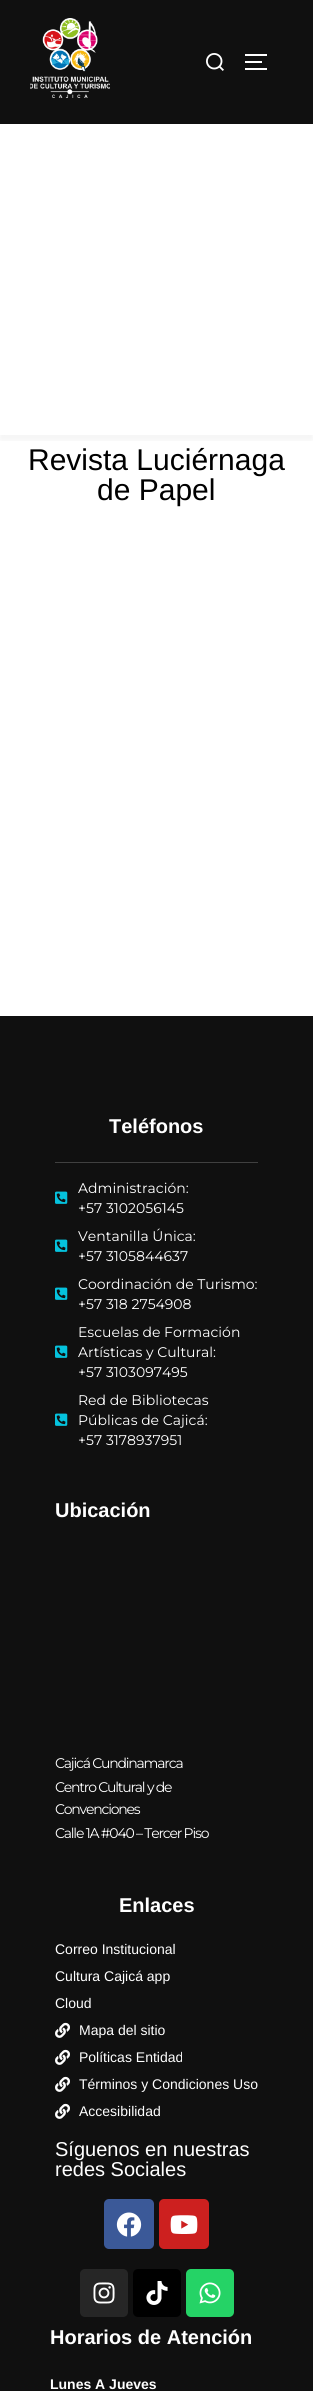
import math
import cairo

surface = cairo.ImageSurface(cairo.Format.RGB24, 313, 2391)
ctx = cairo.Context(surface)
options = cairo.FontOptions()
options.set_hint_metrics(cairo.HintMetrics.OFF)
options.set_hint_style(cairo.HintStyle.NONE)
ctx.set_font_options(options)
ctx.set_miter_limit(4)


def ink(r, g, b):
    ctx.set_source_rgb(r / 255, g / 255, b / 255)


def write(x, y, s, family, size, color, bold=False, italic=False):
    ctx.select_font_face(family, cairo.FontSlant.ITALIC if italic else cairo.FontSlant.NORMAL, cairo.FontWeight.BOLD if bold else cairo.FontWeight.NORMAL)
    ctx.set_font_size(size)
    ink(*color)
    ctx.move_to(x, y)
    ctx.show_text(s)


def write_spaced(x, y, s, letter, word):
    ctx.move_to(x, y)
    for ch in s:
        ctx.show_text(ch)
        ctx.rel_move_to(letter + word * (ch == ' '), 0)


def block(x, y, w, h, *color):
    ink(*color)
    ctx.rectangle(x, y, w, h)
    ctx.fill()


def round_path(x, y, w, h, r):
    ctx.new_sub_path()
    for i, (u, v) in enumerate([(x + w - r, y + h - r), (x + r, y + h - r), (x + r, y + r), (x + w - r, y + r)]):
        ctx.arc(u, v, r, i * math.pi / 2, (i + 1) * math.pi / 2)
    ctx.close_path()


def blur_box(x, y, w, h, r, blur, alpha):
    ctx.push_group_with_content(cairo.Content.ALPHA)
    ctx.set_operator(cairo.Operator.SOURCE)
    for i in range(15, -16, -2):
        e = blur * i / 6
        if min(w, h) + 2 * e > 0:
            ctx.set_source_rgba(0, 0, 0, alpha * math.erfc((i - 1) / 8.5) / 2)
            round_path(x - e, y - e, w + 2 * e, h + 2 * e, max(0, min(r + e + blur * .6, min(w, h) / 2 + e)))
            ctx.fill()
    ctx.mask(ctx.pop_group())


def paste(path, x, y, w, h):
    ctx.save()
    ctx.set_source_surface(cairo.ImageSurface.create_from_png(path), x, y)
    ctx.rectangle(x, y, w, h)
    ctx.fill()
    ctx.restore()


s1 = dict(family="Liberation Sans", size=30, color=(0, 0, 0))
s2 = dict(family="Liberation Sans", size=20, color=(255, 255, 255), bold=True)
s3 = dict(family="Montserrat Thin", size=14, color=(255, 255, 255))
s4 = dict(family="Liberation Sans", size=14, color=(255, 255, 255))
s5 = dict(family="Liberation Sans", size=20, color=(255, 255, 255))
s6 = dict(family="Liberation Sans", size=14, color=(255, 255, 255), bold=True)

ink(255, 255, 255)
ctx.paint()
ctx.save()
ctx.rectangle(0, 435, 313, 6)
ctx.clip()
ink(0, 0, 0)
blur_box(0, 129, 313, 311, 0, 5, 0.05)
ctx.restore()
block(0, 0, 313, 124, 16, 16, 16)
paste("pic1.png", 30, 18, 80, 80)
paste("pic2.png", 206, 53, 18, 18)
block(245, 54, 22, 2, 255, 255, 255)
block(245, 61, 17, 2, 255, 255, 255)
block(245, 68, 22, 2, 255, 255, 255)
write(28, 470, "Revista Luciérnaga", **s1)
write(97, 500, "de Papel", **s1)
block(0, 1016, 313, 1375, 16, 16, 16)
write(109, 1133, "Teléfonos", **s2)
block(55, 1162, 203, 1, 64, 64, 64)
paste("pic3.png", 55, 1191, 13, 13)
write(78, 1193, "Administración:", **s3)
write(78, 1213, "+57 3102056145", **s3)
paste("pic3.png", 55, 1239, 13, 13)
write(78, 1241, "Ventanilla Única:", **s3)
write(78, 1261, "+57 3105844637", **s3)
paste("pic3.png", 55, 1287, 13, 13)
write(78, 1289, "Coordinación de Turismo:", **s3)
write(78, 1309, "+57 318 2754908", **s3)
paste("pic3.png", 55, 1345, 13, 13)
write(78, 1337, "Escuelas de Formación", **s3)
write(78, 1357, "Artísticas y Cultural:", **s3)
write(78, 1377, "+57 3103097495", **s3)
paste("pic3.png", 55, 1413, 13, 13)
write(78, 1405, "Red de Bibliotecas", **s3)
write(78, 1425, "Públicas de Cajicá:", **s3)
write(78, 1445, "+57 3178937951", **s3)
write(55, 1517, "Ubicación", **s2)
ctx.select_font_face("Montserrat Thin")
ctx.set_font_size(14)
write_spaced(55, 1768, "Cajicá Cundinamarca", -1.2, 0)
write_spaced(55, 1792, "Centro Cultural y de", -1.2, 0)
write_spaced(55, 1814, "Convenciones", -1.2, 0)
write_spaced(55, 1838, "Calle 1A #040 – Tercer Piso", -1.2, 0)
write(119, 1912, "Enlaces", **s2)
write(55, 1954, "Correo Institucional", **s4)
write(55, 1981, "Cultura Cajicá app", **s4)
write(55, 2008, "Cloud", **s4)
paste("pic4.png", 55, 2022, 15, 16)
write(79, 2035, "Mapa del sitio", **s4)
paste("pic4.png", 55, 2049, 15, 16)
write(79, 2062, "Políticas Entidad", **s4)
paste("pic4.png", 55, 2076, 15, 16)
write(79, 2089, "Términos y Condiciones Uso", **s4)
paste("pic4.png", 55, 2103, 15, 16)
write(79, 2116, "Accesibilidad", **s4)
write(55, 2156, "Síguenos en nuestras", **s5)
write(55, 2176, "redes Sociales", **s5)
ink(59, 89, 152)
round_path(104, 2199, 50, 50, 5)
ctx.fill()
paste("pic5.png", 116, 2212, 26, 25)
ink(205, 32, 31)
round_path(159, 2199, 50, 50, 5)
ctx.fill()
paste("pic6.png", 170, 2215, 28, 19)
ink(38, 38, 38)
round_path(80, 2269, 48, 48, 5)
ctx.fill()
paste("pic7.png", 93, 2282, 22, 22)
ink(0, 0, 0)
round_path(133, 2269, 48, 48, 5)
ctx.fill()
paste("pic8.png", 146, 2281, 22, 24)
ink(37, 211, 102)
round_path(186, 2269, 48, 48, 5)
ctx.fill()
paste("pic9.png", 199, 2282, 22, 22)
write(50, 2344, "Horarios de Atención", **s2)
write(50, 2389, "Lunes A Jueves", **s6)
surface.write_to_png("screenshot.png")
